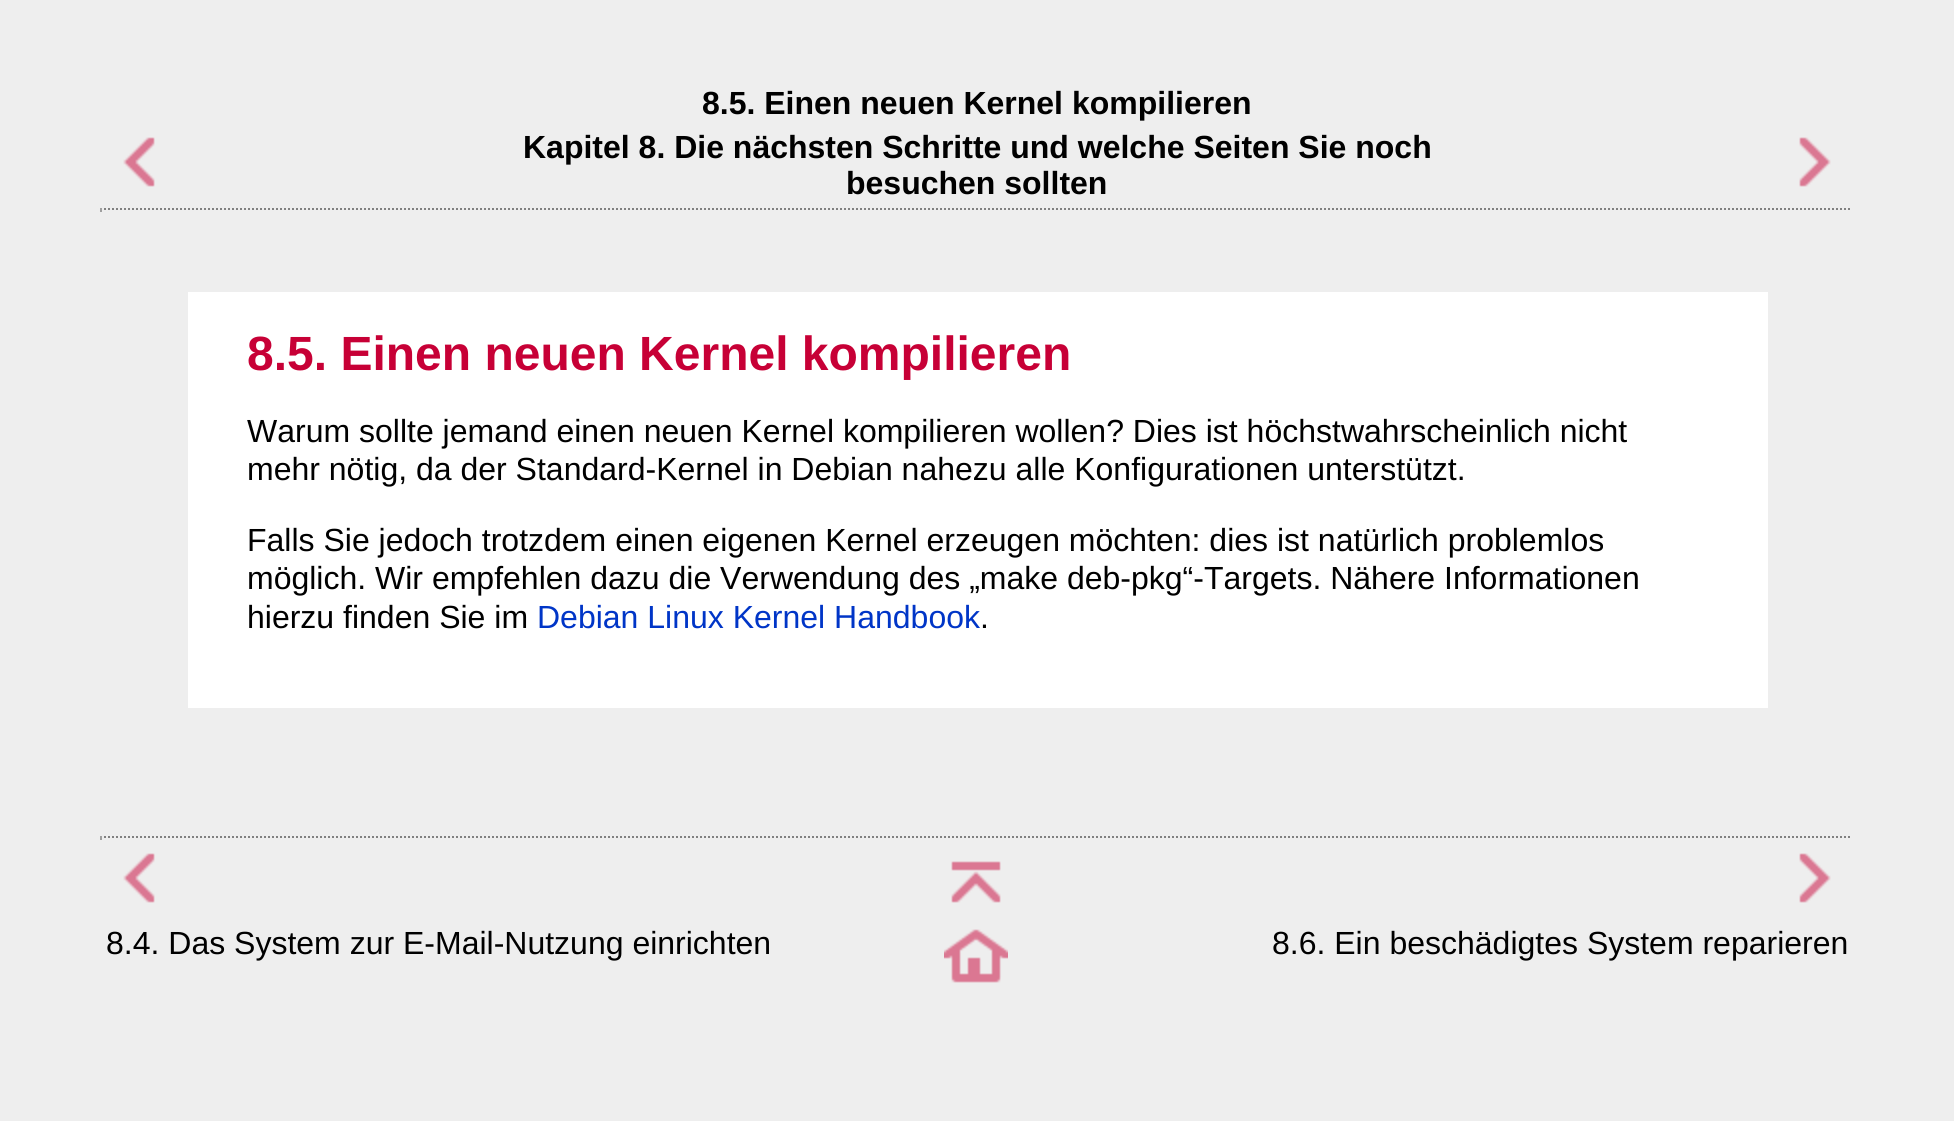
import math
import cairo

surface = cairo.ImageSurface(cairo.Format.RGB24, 1954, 1121)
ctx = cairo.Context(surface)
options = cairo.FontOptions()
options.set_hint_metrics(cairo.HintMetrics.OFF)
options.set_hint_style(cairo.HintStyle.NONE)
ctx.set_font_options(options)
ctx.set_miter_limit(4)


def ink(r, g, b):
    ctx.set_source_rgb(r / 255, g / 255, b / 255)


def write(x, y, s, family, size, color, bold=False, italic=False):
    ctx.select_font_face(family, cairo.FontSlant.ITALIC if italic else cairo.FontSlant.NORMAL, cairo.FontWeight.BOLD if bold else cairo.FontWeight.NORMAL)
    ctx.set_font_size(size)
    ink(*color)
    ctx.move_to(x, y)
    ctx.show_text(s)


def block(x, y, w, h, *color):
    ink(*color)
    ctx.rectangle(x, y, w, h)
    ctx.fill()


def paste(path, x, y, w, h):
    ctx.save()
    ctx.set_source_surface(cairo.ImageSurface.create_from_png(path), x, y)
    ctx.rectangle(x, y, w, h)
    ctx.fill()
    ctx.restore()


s1 = dict(family="Liberation Sans", size=32, color=(0, 0, 0), bold=True)
s2 = dict(family="Liberation Sans", size=48, color=(199, 0, 54), bold=True)
s3 = dict(family="Liberation Sans", size=32, color=(0, 0, 0))
s4 = dict(family="Liberation Sans", size=32, color=(0, 53, 199))

ink(238, 238, 238)
ctx.paint()
write(702, 114, "8.5. Einen neuen Kernel kompilieren", **s1)
paste("pic1.png", 123, 137, 32, 50)
write(523, 158, "Kapitel 8. Die nächsten Schritte und welche Seiten Sie noch", **s1)
write(846, 194, "besuchen sollten", **s1)
paste("pic2.png", 1799, 137, 32, 50)
ctx.new_path()
ctx.move_to(100, 209)
ctx.line_to(1854, 209)
ink(128, 128, 128)
ctx.set_dash([2, 2])
ctx.stroke()
block(1852, 208, 2, 4, 238, 238, 238)
block(100, 208, 2, 4, 159, 159, 159)
block(188, 292, 1580, 416, 255, 255, 255)
write(247, 370, "8.5. Einen neuen Kernel kompilieren", **s2)
write(247, 442, "Warum sollte jemand einen neuen Kernel kompilieren wollen? Dies ist höchstwahrscheinlich nicht", **s3)
write(247, 480, "mehr nötig, da der Standard-Kernel in Debian nahezu alle Konfigurationen unterstützt.", **s3)
write(247, 551, "Falls Sie jedoch trotzdem einen eigenen Kernel erzeugen möchten: dies ist natürlich problemlos", **s3)
write(247, 589, "möglich. Wir empfehlen dazu die Verwendung des „make deb-pkg“-Targets. Nähere Informationen", **s3)
write(247, 628, "hierzu finden Sie im", **s3)
write(537, 628, "Debian Linux Kernel Handbook", **s4)
write(980, 628, ".", **s3)
ctx.new_path()
ctx.move_to(100, 837)
ctx.line_to(1854, 837)
ink(128, 128, 128)
ctx.stroke()
block(1852, 836, 2, 4, 238, 238, 238)
block(100, 836, 2, 4, 159, 159, 159)
paste("pic1.png", 123, 853, 32, 50)
paste("pic3.png", 951, 861, 50, 42)
paste("pic2.png", 1799, 853, 32, 50)
write(106, 954, "8.4. Das System zur E-Mail-Nutzung einrichten", **s3)
paste("pic4.png", 944, 929, 64, 54)
write(1272, 954, "8.6. Ein beschädigtes System reparieren", **s3)
surface.write_to_png("screenshot.png")
